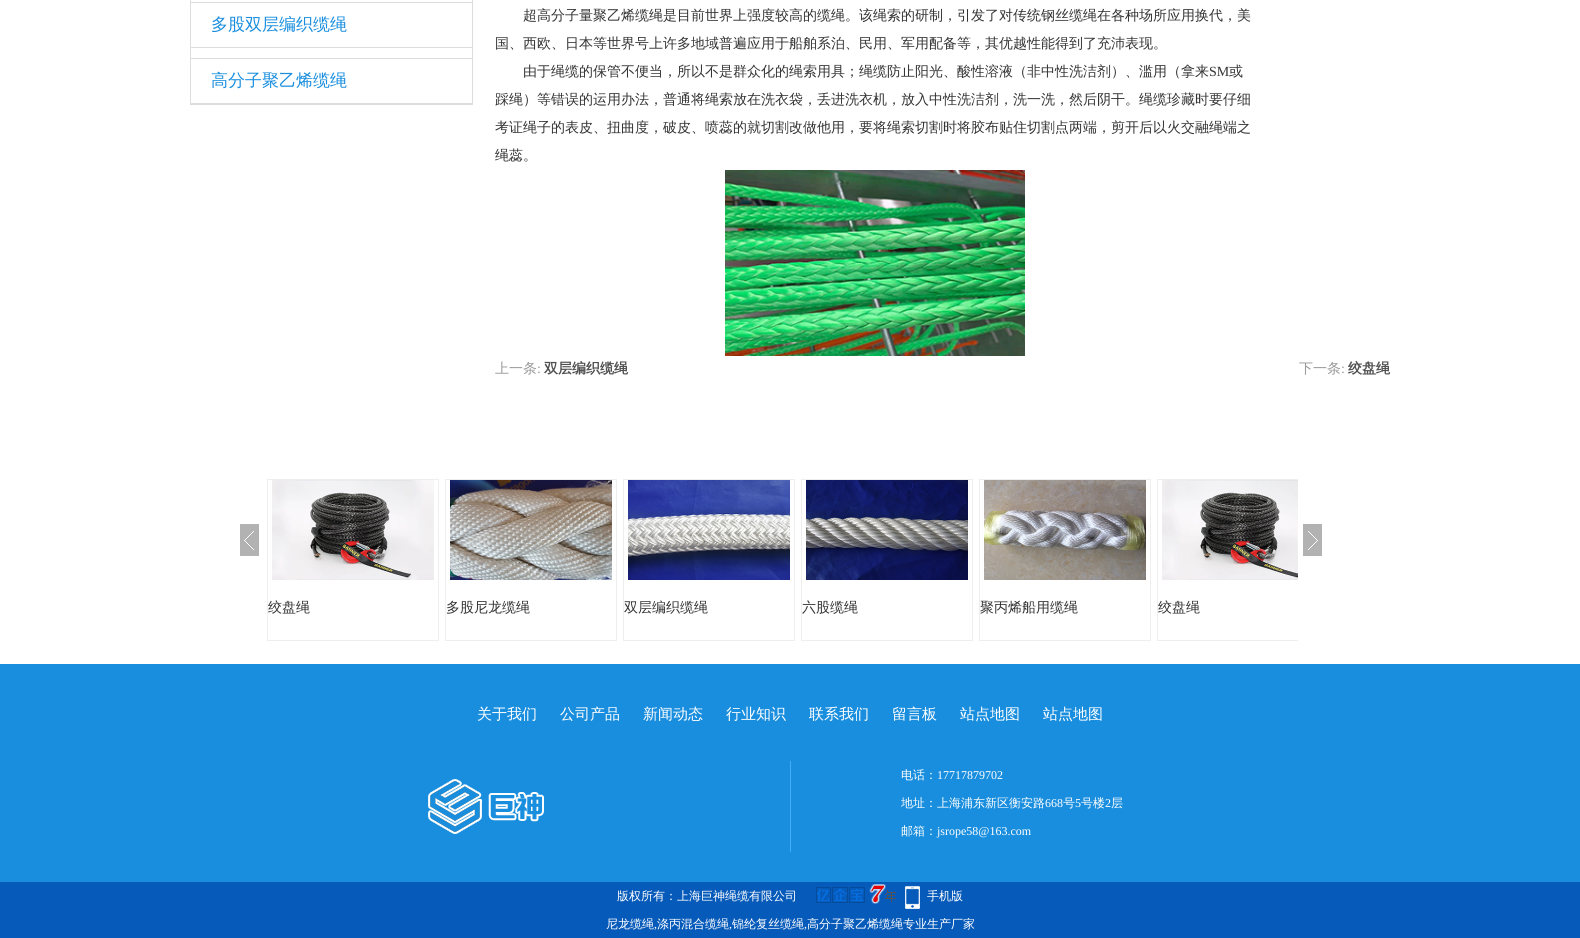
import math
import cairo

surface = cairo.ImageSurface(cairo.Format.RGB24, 1580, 938)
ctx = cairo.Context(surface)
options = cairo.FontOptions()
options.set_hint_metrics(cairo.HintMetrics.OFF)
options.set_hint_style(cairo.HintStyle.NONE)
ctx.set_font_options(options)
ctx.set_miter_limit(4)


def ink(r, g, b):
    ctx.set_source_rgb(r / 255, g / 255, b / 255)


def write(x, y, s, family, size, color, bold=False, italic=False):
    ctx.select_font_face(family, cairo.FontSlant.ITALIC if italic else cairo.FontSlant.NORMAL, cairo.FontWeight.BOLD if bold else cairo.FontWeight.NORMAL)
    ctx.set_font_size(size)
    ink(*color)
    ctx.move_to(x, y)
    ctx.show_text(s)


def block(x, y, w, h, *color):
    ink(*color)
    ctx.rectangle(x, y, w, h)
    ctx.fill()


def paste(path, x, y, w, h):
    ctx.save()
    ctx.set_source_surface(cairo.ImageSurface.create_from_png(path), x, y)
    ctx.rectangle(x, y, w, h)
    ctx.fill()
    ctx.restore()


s1 = dict(family="WenQuanYi Zen Hei Medium", size=17, color=(25, 142, 222))
s2 = dict(family="WenQuanYi Zen Hei Medium", size=14, color=(51, 51, 51))
s3 = dict(family="Liberation Serif", size=14, color=(51, 51, 51))
s4 = dict(family="WenQuanYi Zen Hei Medium", size=14, color=(153, 153, 153))
s5 = dict(family="Liberation Serif", size=14, color=(153, 153, 153))
s6 = dict(family="WenQuanYi Zen Hei", size=14, color=(80, 80, 80), bold=True)
s7 = dict(family="WenQuanYi Zen Hei Medium", size=15, color=(255, 255, 255))
s8 = dict(family="WenQuanYi Zen Hei Medium", size=12, color=(255, 255, 255))
s9 = dict(family="Liberation Serif", size=12, color=(255, 255, 255))

ink(255, 255, 255)
ctx.paint()
block(472, 0, 1, 105, 221, 221, 221)
block(190, 104, 283, 1, 221, 221, 221)
block(190, 0, 1, 105, 221, 221, 221)
block(191, 2, 281, 1, 221, 221, 221)
block(191, 47, 281, 1, 221, 221, 221)
write(211, 30, "多股双层编织缆绳", **s1)
block(191, 58, 281, 1, 221, 221, 221)
block(191, 103, 281, 1, 221, 221, 221)
write(211, 86, "高分子聚乙烯缆绳", **s1)
write(523, 20, "超高分子量聚乙烯缆绳是目前世界上强度较高的缆绳。该绳索的研制，引发了对传统钢丝缆绳在各种场所应用换代，美", **s2)
write(495, 48, "国、西欧、日本等世界号上许多地域普遍应用于船舶系泊、民用、军用配备等，其优越性能得到了充沛表现。", **s2)
write(523, 76, "由于绳缆的保管不便当，所以不是群众化的绳索用具；绳缆防止阳光、酸性溶液（非中性洗洁剂）、滥用（拿来", **s2)
write(1209, 76, "SM", **s3)
write(1229, 76, "或", **s2)
write(495, 104, "踩绳）等错误的运用办法，普通将绳索放在洗衣袋，丢进洗衣机，放入中性洗洁剂，洗一洗，然后阴干。绳缆珍藏时要仔细", **s2)
write(495, 132, "考证绳子的表皮、扭曲度，破皮、喷蕊的就切割改做他用，要将绳索切割时将胶布贴住切割点两端，剪开后以火交融绳端之", **s2)
write(495, 160, "绳蕊。", **s2)
paste("pic1.png", 725, 170, 300, 186)
write(495, 373, "上一条", **s4)
write(537, 373, ":", **s5)
write(544, 373, "双层编织缆绳", **s6)
write(1299, 373, "下一条", **s4)
write(1341, 373, ":", **s5)
write(1348, 373, "绞盘绳", **s6)
paste("pic2.png", 240, 524, 19, 32)
paste("pic3.png", 1303, 524, 19, 32)
ctx.rectangle(267.5, 479.5, 171, 161)
ink(238, 238, 238)
ctx.set_line_width(1)
ctx.stroke()
paste("pic4.png", 272, 480, 162, 100)
write(268, 612, "绞盘绳", **s2)
ctx.rectangle(445.5, 479.5, 171, 161)
ink(238, 238, 238)
ctx.stroke()
paste("pic5.png", 450, 480, 162, 100)
write(446, 612, "多股尼龙缆绳", **s2)
ctx.rectangle(623.5, 479.5, 171, 161)
ink(238, 238, 238)
ctx.stroke()
paste("pic6.png", 628, 480, 162, 100)
write(624, 612, "双层编织缆绳", **s2)
ctx.rectangle(801.5, 479.5, 171, 161)
ink(238, 238, 238)
ctx.stroke()
paste("pic7.png", 806, 480, 162, 100)
write(802, 612, "六股缆绳", **s2)
ctx.rectangle(979.5, 479.5, 171, 161)
ink(238, 238, 238)
ctx.stroke()
paste("pic8.png", 984, 480, 162, 100)
write(980, 612, "聚丙烯船用缆绳", **s2)
ctx.save()
ctx.rectangle(264, 479, 1034, 162)
ctx.clip()
ctx.rectangle(1157.5, 479.5, 171, 161)
ink(238, 238, 238)
ctx.stroke()
ctx.restore()
paste("pic9.png", 1162, 480, 136, 100)
write(1158, 612, "绞盘绳", **s2)
block(0, 664, 1580, 218, 25, 142, 222)
write(477, 719, "关于我们", **s7)
write(560, 719, "公司产品", **s7)
write(643, 719, "新闻动态", **s7)
write(726, 719, "行业知识", **s7)
write(809, 719, "联系我们", **s7)
write(892, 719, "留言板", **s7)
write(960, 719, "站点地图", **s7)
write(1043, 719, "站点地图", **s7)
block(790, 761, 1, 91, 63, 175, 250)
paste("pic10.png", 428, 779, 116, 55)
write(901, 779, "电话：", **s8)
write(937, 779, "17717879702", **s9)
write(901, 807, "地址：上海浦东新区衡安路", **s8)
write(1045, 807, "668", **s9)
write(1063, 807, "号", **s8)
write(1075, 807, "5", **s9)
write(1081, 807, "号楼", **s8)
write(1105, 807, "2", **s9)
write(1111, 807, "层", **s8)
write(901, 835, "邮箱：", **s8)
write(937, 835, "jsrope58@163.com", **s9)
block(0, 882, 1580, 56, 6, 90, 186)
write(617, 900, "版权所有：上海巨神绳缆有限公司", **s8)
paste("pic11.png", 816, 884, 80, 20)
paste("pic12.png", 905, 886, 15, 23)
write(927, 900, "手机版", **s8)
write(606, 928, "尼龙缆绳", **s8)
write(654, 928, ",", **s9)
write(657, 928, "涤丙混合缆绳", **s8)
write(729, 928, ",", **s9)
write(732, 928, "锦纶复丝缆绳", **s8)
write(804, 928, ",", **s9)
write(807, 928, "高分子聚乙烯缆绳专业生产厂家", **s8)
surface.write_to_png("screenshot.png")
